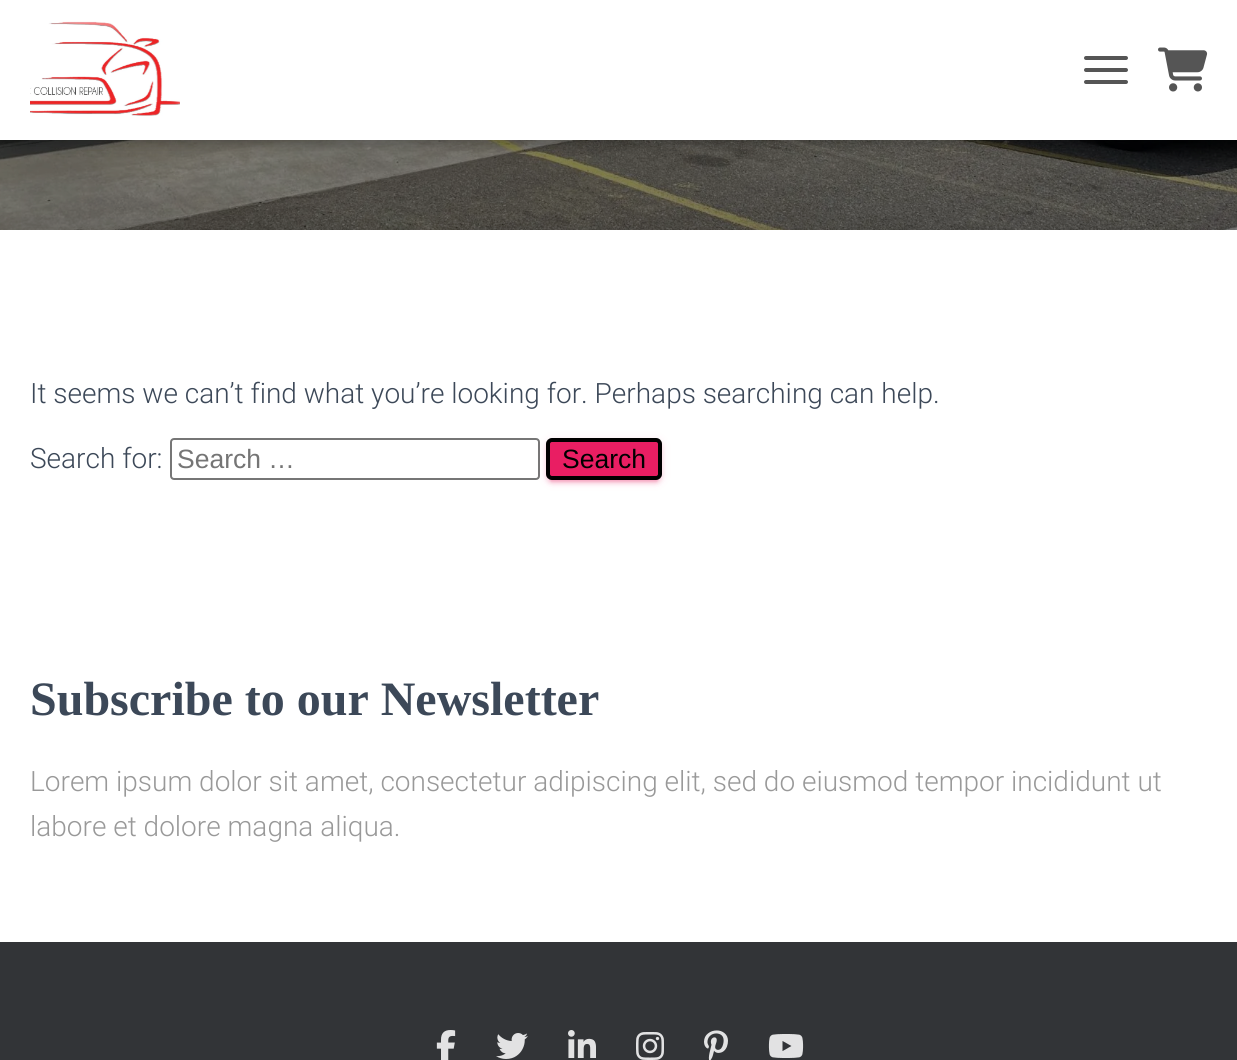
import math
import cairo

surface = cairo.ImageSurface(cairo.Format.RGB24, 1237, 1060)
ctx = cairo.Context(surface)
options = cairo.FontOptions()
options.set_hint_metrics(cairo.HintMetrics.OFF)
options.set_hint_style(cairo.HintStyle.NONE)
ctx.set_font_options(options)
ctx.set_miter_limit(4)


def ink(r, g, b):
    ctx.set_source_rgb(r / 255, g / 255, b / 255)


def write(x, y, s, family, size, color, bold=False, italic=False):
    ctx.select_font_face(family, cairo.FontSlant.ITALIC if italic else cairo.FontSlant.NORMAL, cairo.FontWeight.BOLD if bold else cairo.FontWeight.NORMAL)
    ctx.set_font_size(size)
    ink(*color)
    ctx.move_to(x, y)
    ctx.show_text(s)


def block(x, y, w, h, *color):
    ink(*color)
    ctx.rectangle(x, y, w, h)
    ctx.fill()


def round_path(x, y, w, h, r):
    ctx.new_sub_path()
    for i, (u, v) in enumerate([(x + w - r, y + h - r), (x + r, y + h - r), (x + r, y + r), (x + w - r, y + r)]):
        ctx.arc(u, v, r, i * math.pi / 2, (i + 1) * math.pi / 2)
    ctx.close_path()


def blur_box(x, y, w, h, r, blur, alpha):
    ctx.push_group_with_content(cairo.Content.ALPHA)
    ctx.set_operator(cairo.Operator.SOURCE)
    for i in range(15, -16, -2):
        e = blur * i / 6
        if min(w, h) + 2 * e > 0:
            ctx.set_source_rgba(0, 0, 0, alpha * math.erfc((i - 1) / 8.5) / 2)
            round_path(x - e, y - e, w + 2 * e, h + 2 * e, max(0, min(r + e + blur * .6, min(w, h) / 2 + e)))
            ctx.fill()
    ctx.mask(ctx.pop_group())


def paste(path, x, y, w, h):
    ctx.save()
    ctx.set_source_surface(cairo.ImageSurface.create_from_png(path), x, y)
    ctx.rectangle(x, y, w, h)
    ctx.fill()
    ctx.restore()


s1 = dict(family="Roboto Light", size=28, color=(60, 72, 88))
s2 = dict(family="Liberation Sans", size=26.5, color=(117, 117, 117))
s3 = dict(family="Liberation Sans", size=26.5, color=(0, 0, 0))
s4 = dict(family="Liberation Serif", size=48, color=(60, 72, 88), bold=True)
s5 = dict(family="Roboto Light", size=28, color=(153, 153, 153))

ink(255, 255, 255)
ctx.paint()
paste("pic3.png", 0, 140, 1237, 90)
ink(0, 0, 0)
blur_box(4, 12, 1230, 132, 0, 5, 0.1)
blur_box(0, 2, 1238, 140, 0, 10, 0.12)
blur_box(12, 14, 1214, 116, 0, 10, 0.42)
block(0, 0, 1237, 140, 255, 255, 255)
paste("pic1.png", 30, 21, 150, 95)
ink(85, 85, 85)
round_path(1084, 56, 44, 4, 2)
ctx.fill()
round_path(1084, 68, 44, 4, 2)
ctx.fill()
round_path(1084, 80, 44, 4, 2)
ctx.fill()
paste("pic2.png", 1158, 47, 50, 45)
ink(0, 0, 0)
blur_box(-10, 232, 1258, 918, 0, 30, 0.12)
block(0, 230, 1237, 712, 255, 255, 255)
write(30, 403, "It seems we can’t find what you’re looking for. Perhaps searching can help.", **s1)
write(30, 468, "Search for:", **s1)
round_path(171, 439, 368, 40, 3)
ink(118, 118, 118)
ctx.stroke()
write(177, 468, "Search …", **s2)
ink(233, 30, 99)
blur_box(546, 440, 116, 42, 6, 5, 0.12)
blur_box(550, 448, 108, 34, 2, 1, 0.2)
blur_box(546, 442, 116, 42, 6, 2, 0.14)
ink(233, 30, 99)
round_path(548, 440, 112, 38, 4)
ctx.fill_preserve()
ink(0, 0, 0)
ctx.set_line_width(4)
ctx.stroke()
write(562, 468, "Search", **s3)
write(30, 715, "Subscribe to our Newsletter", **s4)
write(30, 791, "Lorem ipsum dolor sit amet, consectetur adipiscing elit, sed do eiusmod tempor incididunt ut", **s5)
write(30, 836, "labore et dolore magna aliqua.", **s5)
block(0, 942, 1237, 118, 50, 52, 55)
paste("pic4.png", 436, 1030, 20, 30)
paste("pic5.png", 496, 1033, 32, 26)
paste("pic6.png", 568, 1030, 28, 28)
paste("pic7.png", 636, 1032, 28, 28)
paste("pic8.png", 704, 1030, 24, 30)
paste("pic9.png", 768, 1034, 36, 24)
surface.write_to_png("screenshot.png")
